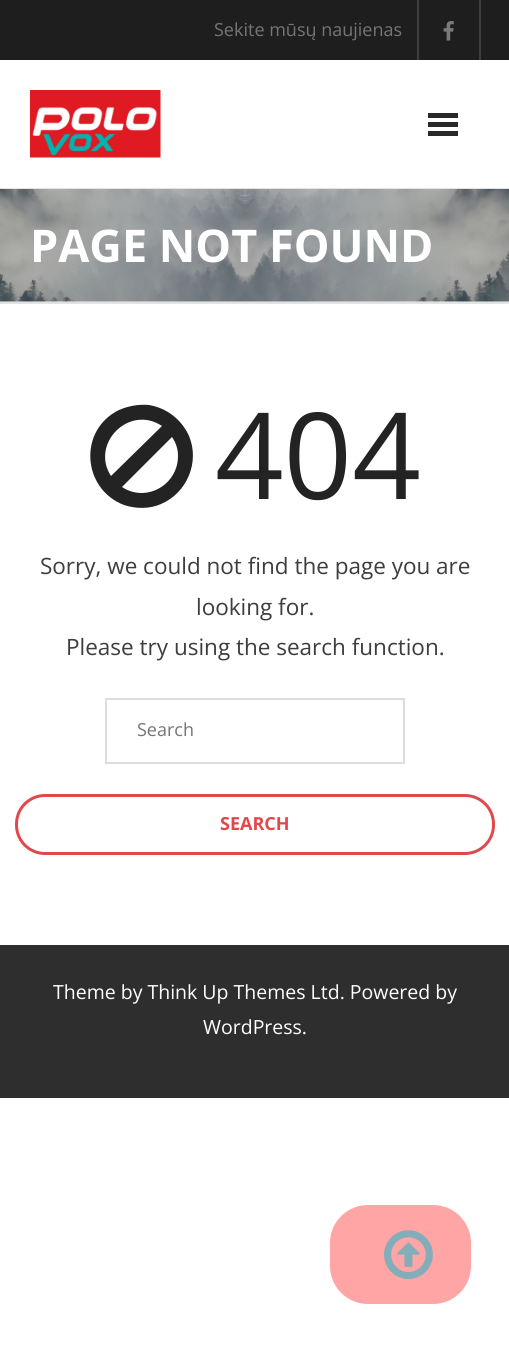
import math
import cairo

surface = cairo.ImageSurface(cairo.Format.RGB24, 509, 1354)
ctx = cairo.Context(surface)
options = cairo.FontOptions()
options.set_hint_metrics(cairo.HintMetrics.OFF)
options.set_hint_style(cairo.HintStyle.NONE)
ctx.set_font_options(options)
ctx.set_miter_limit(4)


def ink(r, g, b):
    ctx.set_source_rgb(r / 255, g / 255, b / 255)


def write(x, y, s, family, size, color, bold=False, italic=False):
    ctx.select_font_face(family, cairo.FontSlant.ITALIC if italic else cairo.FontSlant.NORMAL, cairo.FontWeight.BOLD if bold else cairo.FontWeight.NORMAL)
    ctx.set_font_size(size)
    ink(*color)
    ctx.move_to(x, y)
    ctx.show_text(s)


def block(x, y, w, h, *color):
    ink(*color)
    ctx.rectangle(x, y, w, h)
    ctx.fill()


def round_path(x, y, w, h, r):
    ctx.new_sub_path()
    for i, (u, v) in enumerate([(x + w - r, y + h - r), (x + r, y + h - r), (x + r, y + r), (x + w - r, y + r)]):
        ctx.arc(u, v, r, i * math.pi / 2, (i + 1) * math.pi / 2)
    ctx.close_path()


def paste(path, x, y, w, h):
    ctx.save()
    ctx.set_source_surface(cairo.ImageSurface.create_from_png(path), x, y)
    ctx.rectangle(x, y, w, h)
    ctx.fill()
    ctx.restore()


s1 = dict(family="Open Sans", size=18, color=(117, 117, 117))
s2 = dict(family="Open Sans", size=45, color=(255, 255, 255), bold=True)
s3 = dict(family="Open Sans", size=120, color=(35, 35, 35))
s4 = dict(family="Open Sans", size=22.5, color=(61, 61, 61))
s5 = dict(family="Open Sans", size=18, color=(224, 72, 76), bold=True)
s6 = dict(family="Open Sans", size=19.5, color=(255, 255, 255))

ink(255, 255, 255)
ctx.paint()
block(0, 0, 509, 60, 30, 30, 30)
write(214, 36, "Sekite mūsų naujienas", **s1)
block(479, 0, 2, 60, 62, 62, 62)
block(417, 0, 2, 60, 62, 62, 62)
paste("pic1.png", 443, 21, 11, 20)
block(0, 188, 509, 1, 227, 227, 227)
paste("pic2.png", 30, 90, 131, 68)
block(428, 113, 30, 5, 41, 41, 41)
block(428, 122, 30, 5, 41, 41, 41)
block(428, 131, 30, 5, 41, 41, 41)
block(0, 301, 509, 1, 245, 245, 245)
paste("pic3.png", 0, 189, 509, 113)
block(0, 302, 509, 2, 227, 227, 227)
write(30, 262, "PAGE NOT FOUND", **s2)
ink(35, 35, 35)
ctx.new_path()
ctx.move_to(178, 456)
ctx.curve_to(178, 449, 176, 443, 172, 437)
ctx.line_to(122, 487)
ctx.curve_to(146, 503, 178, 485, 178, 456)
ctx.close_path()
ctx.move_to(111, 476)
ctx.line_to(162, 426)
ctx.curve_to(129, 404, 90, 444, 111, 476)
ctx.close_path()
ctx.move_to(189, 436)
ctx.curve_to(200, 462, 187, 493, 161, 504)
ctx.curve_to(150, 509, 136, 509, 124, 505)
ctx.curve_to(82, 489, 78, 430, 119, 410)
ctx.curve_to(128, 406, 139, 404, 149, 405)
ctx.curve_to(167, 408, 182, 420, 189, 436)
ctx.close_path()
ctx.fill()
write(215, 499, "404", **s3)
write(40, 574, "Sorry, we could not find the page you are", **s4)
write(196, 615, "looking for.", **s4)
write(66, 655, "Please try using the search function.", **s4)
ctx.rectangle(106, 699, 298, 64)
ink(221, 221, 221)
ctx.stroke()
write(137, 736, "Search", **s1)
round_path(16.5, 795.5, 477, 58, 28.5)
ink(224, 72, 76)
ctx.set_line_width(3)
ctx.stroke()
write(220, 830, "SEARCH", **s5)
block(0, 945, 509, 153, 46, 46, 46)
write(53, 999, "Theme by Think Up Themes Ltd. Powered by", **s6)
write(203, 1034, "WordPress.", **s6)
ink(255, 165, 165)
round_path(330, 1205, 141, 99, 38)
ctx.fill()
paste("pic4.png", 384, 1230, 49, 50)
surface.write_to_png("screenshot.png")
